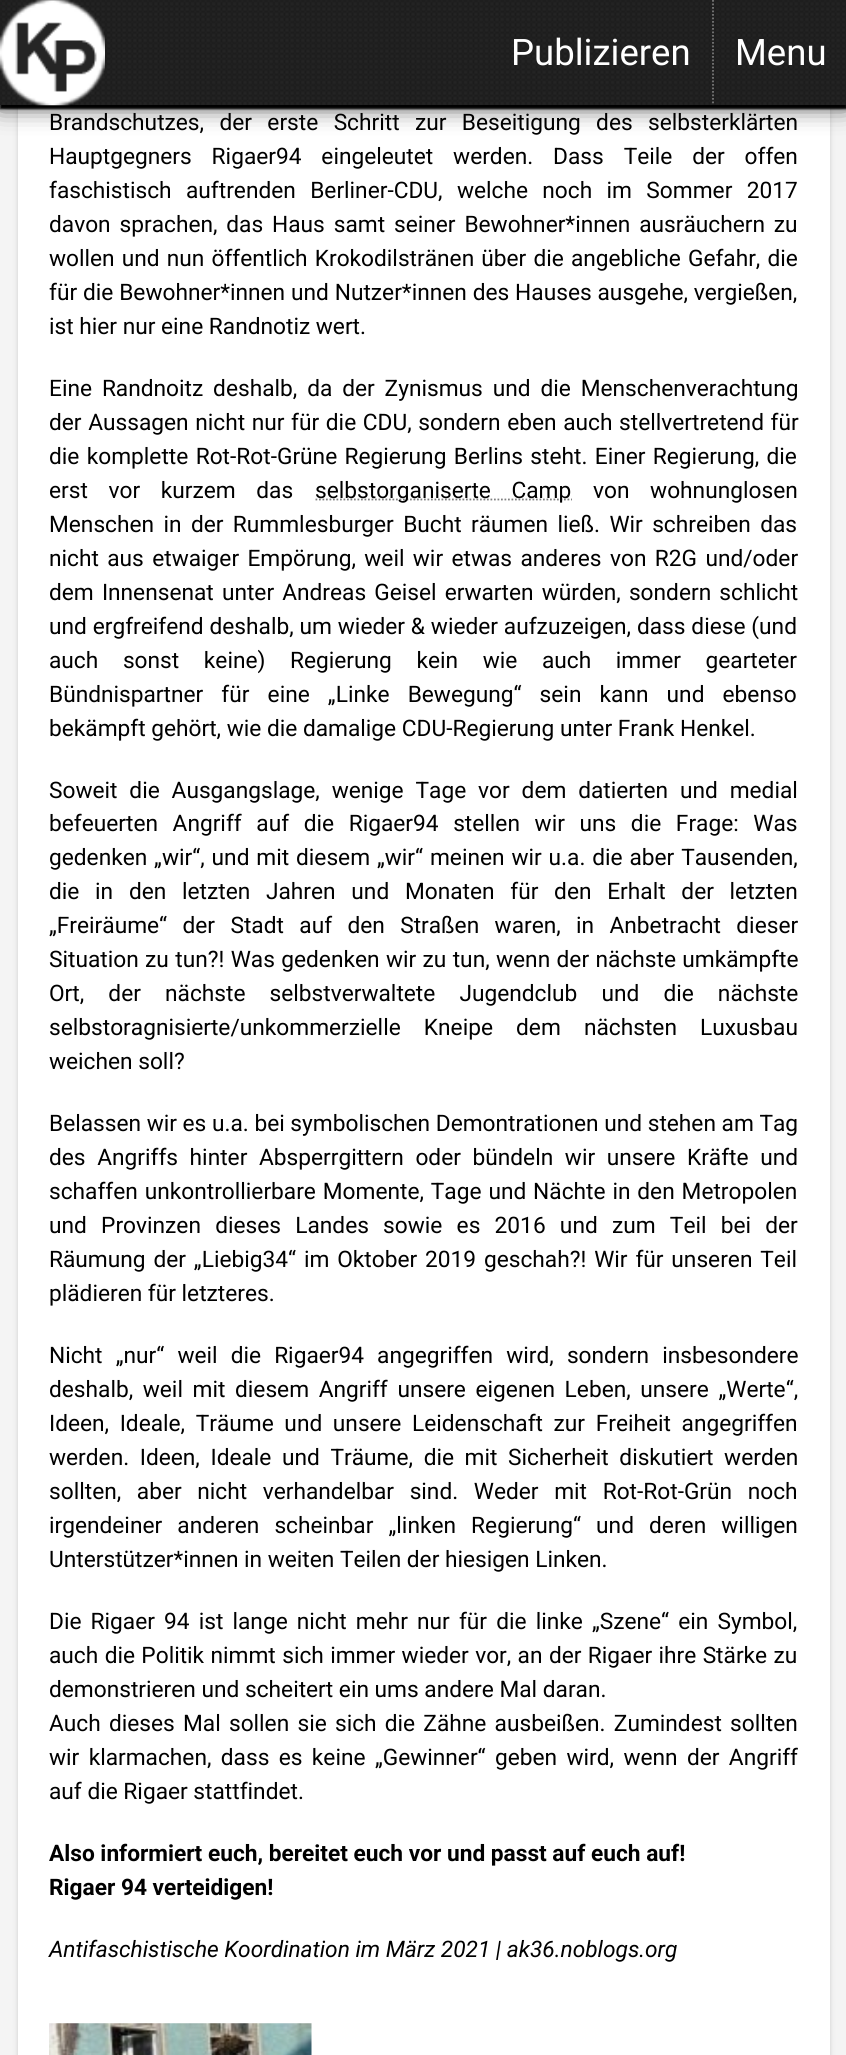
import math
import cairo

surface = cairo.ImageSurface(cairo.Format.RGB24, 846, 2055)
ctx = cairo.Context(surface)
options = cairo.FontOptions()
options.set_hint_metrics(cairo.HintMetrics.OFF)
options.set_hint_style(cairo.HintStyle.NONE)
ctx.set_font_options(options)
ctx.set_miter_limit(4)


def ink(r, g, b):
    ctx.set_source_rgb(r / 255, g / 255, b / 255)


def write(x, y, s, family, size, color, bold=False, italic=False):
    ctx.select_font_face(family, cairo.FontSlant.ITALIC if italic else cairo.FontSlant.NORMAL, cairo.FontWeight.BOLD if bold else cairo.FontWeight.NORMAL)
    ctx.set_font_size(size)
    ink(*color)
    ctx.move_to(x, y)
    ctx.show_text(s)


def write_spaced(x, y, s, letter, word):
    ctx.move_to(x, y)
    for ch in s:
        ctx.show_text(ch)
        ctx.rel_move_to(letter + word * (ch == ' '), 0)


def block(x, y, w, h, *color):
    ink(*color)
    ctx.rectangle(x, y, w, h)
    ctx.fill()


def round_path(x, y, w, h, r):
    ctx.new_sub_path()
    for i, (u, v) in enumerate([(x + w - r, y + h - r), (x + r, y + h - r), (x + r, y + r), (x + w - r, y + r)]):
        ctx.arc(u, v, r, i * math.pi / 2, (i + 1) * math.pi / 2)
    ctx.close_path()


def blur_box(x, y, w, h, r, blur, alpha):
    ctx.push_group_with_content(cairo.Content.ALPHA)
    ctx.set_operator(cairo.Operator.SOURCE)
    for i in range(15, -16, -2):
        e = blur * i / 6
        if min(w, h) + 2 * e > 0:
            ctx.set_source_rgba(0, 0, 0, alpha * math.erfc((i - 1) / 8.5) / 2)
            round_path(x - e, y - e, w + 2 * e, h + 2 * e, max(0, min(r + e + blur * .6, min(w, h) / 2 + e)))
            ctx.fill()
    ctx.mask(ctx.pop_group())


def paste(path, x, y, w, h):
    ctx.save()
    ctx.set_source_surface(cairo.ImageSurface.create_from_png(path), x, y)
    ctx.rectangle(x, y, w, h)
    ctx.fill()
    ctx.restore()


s1 = dict(family="Roboto", size=36.5, color=(255, 255, 255))
s2 = dict(family="Roboto", size=22.7, color=(0, 0, 0))
s3 = dict(family="Roboto", size=22.7, color=(0, 0, 0), bold=True)
s4 = dict(family="Roboto", size=22.7, color=(0, 0, 0), italic=True)

ink(244, 244, 244)
ctx.paint()
ink(204, 204, 204)
blur_box(18, -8, 812, 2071, 0, 2.5, 1)
block(18, 107, 812, 1948, 255, 255, 255)
ink(0, 0, 0)
blur_box(0, 4, 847, 105, 0, 1, 1)
blur_box(0, -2, 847, 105, 0, 13, 1)
paste("pic2.png", 0, 0, 846, 105)
paste("pic1.png", 0, 0, 105, 106)
write(511, 65, "Publizieren", **s1)
ctx.new_path()
ctx.move_to(713, 0)
ctx.line_to(713, 105)
ink(119, 119, 119)
ctx.set_line_width(1.8)
ctx.set_dash([1.75, 1.75])
ctx.stroke()
write(735, 65, "Menu", **s1)
ctx.set_font_size(22.7)
ink(0, 0, 0)
write_spaced(49, 130, "Brandschutzes, der erste Schritt zur Beseitigung des selbsterklärten", 0, 9.75)
write_spaced(49, 164, "Hauptgegners Rigaer94 eingeleutet werden. Dass Teile der offen", 0, 14.25)
write_spaced(49, 198, "faschistisch auftrenden Berliner-CDU, welche noch im Sommer 2017", 0, 8.75)
write_spaced(49, 232, "davon sprachen, das Haus samt seiner Bewohner*innen ausräuchern zu", 0, 3.25)
write_spaced(49, 266, "wollen und nun öffentlich Krokodilstränen über die angebliche Gefahr, die", 0, 1.5)
write_spaced(49, 300, "für die Bewohner*innen und Nutzer*innen des Hauses ausgehe, vergießen,", 0, 0.25)
write(49, 334, "ist hier nur eine Randnotiz wert.", **s2)
write_spaced(49, 396, "Eine Randnoitz deshalb, da der Zynismus und die Menschenverachtung", 0, 4.25)
write_spaced(49, 430, "der Aussagen nicht nur für die CDU, sondern eben auch stellvertretend für", 0, 1)
write_spaced(49, 464, "die komplette Rot-Rot-Grüne Regierung Berlins steht. Einer Regierung, die", 0, 1.75)
write_spaced(49, 498, "erst vor kurzem das", 0, 15)
ctx.new_path()
ctx.move_to(315.5, 499.5)
ctx.line_to(572, 499.5)
ink(128, 128, 128)
ctx.stroke()
ink(0, 0, 0)
write_spaced(315, 498, "selbstorganiserte Camp", 0, 15)
write_spaced(593, 498, "von wohnunglosen", 0, 15)
write_spaced(49, 532, "Menschen in der Rummlesburger Bucht räumen ließ. Wir schreiben das", 0, 3.75)
write_spaced(49, 566, "nicht aus etwaiger Empörung, weil wir etwas anderes von R2G und/oder", 0, 2.75)
write_spaced(49, 600, "dem Innensenat unter Andreas Geisel erwarten würden, sondern schlicht", 0, 2.5)
write_spaced(49, 634, "und ergfreifend deshalb, um wieder & wieder aufzuzeigen, dass diese (und", 0, 0.25)
write_spaced(49, 668, "auch sonst keine) Regierung kein wie auch immer gearteter", 0, 19)
write_spaced(49, 702, "Bündnispartner für eine „Linke Bewegung“ sein kann und ebenso", 0, 12.5)
write(49, 736, "bekämpft gehört, wie die damalige CDU-Regierung unter Frank Henkel.", **s2)
write_spaced(49, 798, "Soweit die Ausgangslage, wenige Tage vor dem datierten und medial", 0, 6.25)
write_spaced(49, 831, "befeuerten Angriff auf die Rigaer94 stellen wir uns die Frage: Was", 0, 9)
write_spaced(49, 865, "gedenken „wir“, und mit diesem „wir“ meinen wir u.a. die aber Tausenden,", 0, 1.25)
write_spaced(49, 899, "die in den letzten Jahren und Monaten für den Erhalt der letzten", 0, 10.1)
write_spaced(49, 933, "„Freiräume“ der Stadt auf den Straßen waren, in Anbetracht dieser", 0, 9.75)
write_spaced(49, 967, "Situation zu tun?! Was gedenken wir zu tun, wenn der nächste umkämpfte", 0, 0.75)
write_spaced(49, 1001, "Ort, der nächste selbstverwaltete Jugendclub und die nächste", 0, 18.5)
write_spaced(49, 1035, "selbstoragnisierte/unkommerzielle Kneipe dem nächsten Luxusbau", 0, 17.5)
write(49, 1069, "weichen soll?", **s2)
write(49, 1131, "Belassen wir es u.a. bei symbolischen Demontrationen und stehen am Tag", **s2)
write_spaced(49, 1165, "des Angriffs hinter Absperrgittern oder bündeln wir unsere Kräfte und", 0, 6)
write_spaced(49, 1199, "schaffen unkontrollierbare Momente, Tage und Nächte in den Metropolen", 0, 1.25)
write_spaced(49, 1233, "und Provinzen dieses Landes sowie es 2016 und zum Teil bei der", 0, 8.6)
write_spaced(49, 1267, "Räumung der „Liebig34“ im Oktober 2019 geschah?! Wir für unseren Teil", 0, 2.25)
write(49, 1301, "plädieren für letzteres.", **s2)
write_spaced(49, 1363, "Nicht „nur“ weil die Rigaer94 angegriffen wird, sondern insbesondere", 0, 7.5)
write_spaced(49, 1397, "deshalb, weil mit diesem Angriff unsere eigenen Leben, unsere „Werte“,", 0, 4)
write_spaced(49, 1431, "Ideen, Ideale, Träume und unsere Leidenschaft zur Freiheit angegriffen", 0, 5)
write_spaced(49, 1465, "werden. Ideen, Ideale und Träume, die mit Sicherheit diskutiert werden", 0, 5)
write_spaced(49, 1499, "sollten, aber nicht verhandelbar sind. Weder mit Rot-Rot-Grün noch", 0, 10)
write_spaced(49, 1533, "irgendeiner anderen scheinbar „linken Regierung“ und deren willigen", 0, 9.5)
write(49, 1567, "Unterstützer*innen in weiten Teilen der hiesigen Linken.", **s2)
write_spaced(49, 1629, "Die Rigaer 94 ist lange nicht mehr nur für die linke „Szene“ ein Symbol,", 0, 3.5)
write_spaced(49, 1663, "auch die Politik nimmt sich immer wieder vor, an der Rigaer ihre Stärke zu", 0, 0.75)
write(49, 1697, "demonstrieren und scheitert ein ums andere Mal daran.", **s2)
write_spaced(49, 1731, "Auch dieses Mal sollen sie sich die Zähne ausbeißen. Zumindest sollten", 0, 2.6)
write_spaced(49, 1765, "wir klarmachen, dass es keine „Gewinner“ geben wird, wenn der Angriff", 0, 3.75)
write(49, 1799, "auf die Rigaer stattfindet.", **s2)
write(49, 1861, "Also informiert euch, bereitet euch vor und passt auf euch auf!", **s3)
write(49, 1895, "Rigaer 94 verteidigen!", **s3)
write(49, 1957, "Antifaschistische Koordination im März 2021 | ak36.noblogs.org", **s4)
paste("pic3.png", 49, 2023, 263, 32)
surface.write_to_png("screenshot.png")
